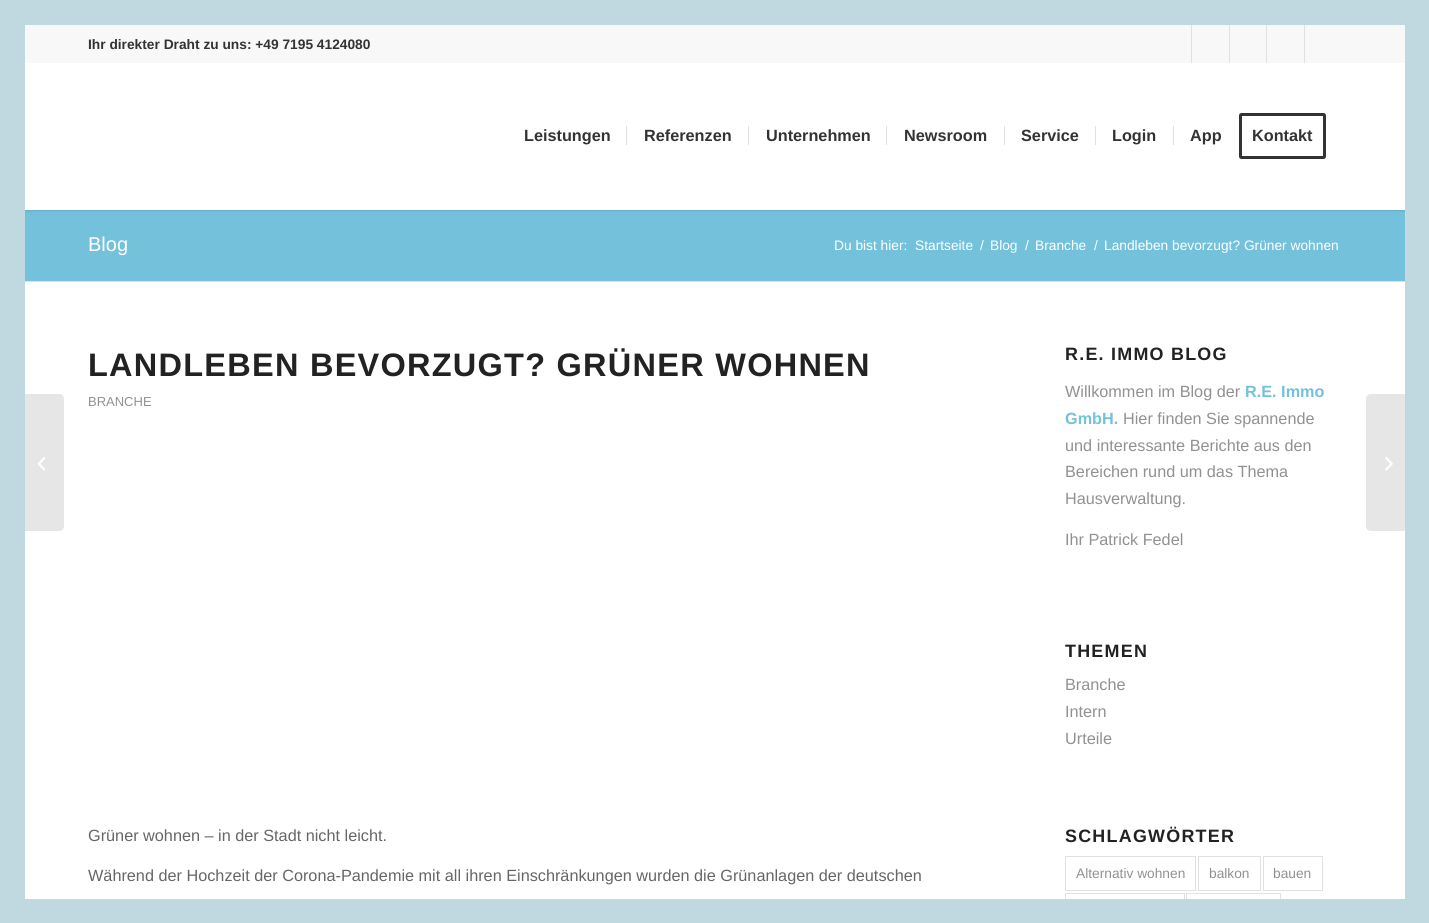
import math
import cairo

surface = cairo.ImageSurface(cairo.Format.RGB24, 1429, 923)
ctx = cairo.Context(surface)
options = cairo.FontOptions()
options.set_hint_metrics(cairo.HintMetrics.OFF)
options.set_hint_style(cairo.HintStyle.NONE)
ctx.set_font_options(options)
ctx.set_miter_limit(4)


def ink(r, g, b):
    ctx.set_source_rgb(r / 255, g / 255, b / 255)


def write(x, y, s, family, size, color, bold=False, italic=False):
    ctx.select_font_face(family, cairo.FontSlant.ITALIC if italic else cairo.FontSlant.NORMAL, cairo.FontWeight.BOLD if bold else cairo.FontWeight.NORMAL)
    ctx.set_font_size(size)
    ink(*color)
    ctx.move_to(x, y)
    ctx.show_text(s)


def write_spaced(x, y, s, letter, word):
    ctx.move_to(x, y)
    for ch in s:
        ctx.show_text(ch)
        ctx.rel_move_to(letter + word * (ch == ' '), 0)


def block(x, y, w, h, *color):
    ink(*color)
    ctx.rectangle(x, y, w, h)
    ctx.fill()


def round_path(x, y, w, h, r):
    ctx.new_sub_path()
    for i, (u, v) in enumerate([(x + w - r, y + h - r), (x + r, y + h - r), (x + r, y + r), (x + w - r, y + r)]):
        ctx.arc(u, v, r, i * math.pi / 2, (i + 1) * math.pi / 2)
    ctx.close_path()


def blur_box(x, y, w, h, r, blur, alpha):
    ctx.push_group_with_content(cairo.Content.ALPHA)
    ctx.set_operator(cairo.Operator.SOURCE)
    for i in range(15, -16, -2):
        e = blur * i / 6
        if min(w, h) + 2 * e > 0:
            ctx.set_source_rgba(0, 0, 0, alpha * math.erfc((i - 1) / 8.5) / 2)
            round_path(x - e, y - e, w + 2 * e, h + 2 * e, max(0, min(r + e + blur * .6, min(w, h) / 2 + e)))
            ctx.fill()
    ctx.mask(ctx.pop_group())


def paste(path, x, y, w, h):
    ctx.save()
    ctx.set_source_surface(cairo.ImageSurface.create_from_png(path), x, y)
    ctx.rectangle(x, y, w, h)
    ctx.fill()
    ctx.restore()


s1 = dict(family="Liberation Sans", size=13.75, color=(51, 51, 51), bold=True)
s2 = dict(family="Liberation Sans", size=16.25, color=(51, 51, 51), bold=True)
s3 = dict(family="Liberation Sans", size=20, color=(255, 255, 255))
s4 = dict(family="Liberation Sans", size=13.75, color=(255, 255, 255))
s5 = dict(family="Liberation Sans", size=13, color=(145, 145, 145))
s6 = dict(family="Liberation Sans", size=16.25, color=(102, 102, 102))
s7 = dict(family="Liberation Sans", size=16.25, color=(145, 145, 145))
s8 = dict(family="Liberation Sans", size=16.25, color=(116, 193, 219), bold=True)
s9 = dict(family="Liberation Sans", size=13.75, color=(145, 145, 145))

ink(255, 255, 255)
ctx.paint()
block(25, 210, 1380, 71, 116, 193, 219)
ink(0, 0, 0)
blur_box(-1, 24, 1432, 187, 0, 1, 0.1)
block(0, 0, 25, 923, 192, 216, 224)
block(25, 0, 1380, 25, 192, 216, 224)
block(1405, 0, 24, 923, 192, 216, 224)
block(25, 25, 1380, 38, 248, 248, 248)
write(88, 49, "Ihr direkter Draht zu uns: +49 7195 4124080", **s1)
block(1191, 25, 1, 38, 225, 225, 225)
block(1229, 25, 1, 38, 225, 225, 225)
block(1266, 25, 1, 38, 225, 225, 225)
block(1304, 25, 1, 38, 225, 225, 225)
block(25, 63, 1380, 147, 255, 255, 255)
write(524, 141, "Leistungen", **s2)
write(644, 141, "Referenzen", **s2)
block(626, 126, 1, 19, 225, 225, 225)
write(766, 141, "Unternehmen", **s2)
block(748, 126, 1, 19, 225, 225, 225)
write(904, 141, "Newsroom", **s2)
block(886, 126, 1, 19, 225, 225, 225)
write(1021, 141, "Service", **s2)
block(1004, 126, 1, 19, 225, 225, 225)
write(1112, 141, "Login", **s2)
block(1095, 126, 1, 19, 225, 225, 225)
write(1190, 141, "App", **s2)
block(1173, 126, 1, 19, 225, 225, 225)
round_path(1240.5, 114.5, 84, 43, 1)
ink(51, 51, 51)
ctx.set_line_width(3)
ctx.stroke()
write(1252, 141, "Kontakt", **s2)
ink(230, 230, 230)
ctx.new_path()
ctx.move_to(25, 394)
ctx.line_to(59, 394)
ctx.curve_to(62, 394, 64, 396, 64, 399)
ctx.line_to(64, 526)
ctx.curve_to(64, 529, 62, 531, 59, 531)
ctx.line_to(25, 531)
ctx.close_path()
ctx.fill()
paste("pic1.png", 38, 457, 7, 14)
write(88, 251, "Blog", **s3)
write(834, 250, "Du bist hier:", **s4)
write(915, 250, "Startseite", **s4)
write(980, 250, "/", **s4)
write(990, 250, "Blog", **s4)
write(1025, 250, "/", **s4)
write(1035, 250, "Branche", **s4)
write(1094, 250, "/", **s4)
write(1104, 250, "Landleben bevorzugt? Grüner wohnen", **s4)
block(25, 281, 1380, 1, 225, 225, 225)
ctx.select_font_face("Liberation Sans", cairo.FontSlant.NORMAL, cairo.FontWeight.BOLD)
ctx.set_font_size(32.5)
ink(34, 34, 34)
write_spaced(88, 376, "LANDLEBEN BEVORZUGT? GRÜNER WOHNEN", 1.25, 0)
write(88, 406, "BRANCHE", **s5)
write(88, 841, "Grüner wohnen – in der Stadt nicht leicht.", **s6)
write(88, 881, "Während der Hochzeit der Corona-Pandemie mit all ihren Einschränkungen wurden die Grünanlagen der deutschen", **s6)
ctx.select_font_face("Liberation Sans", cairo.FontSlant.NORMAL, cairo.FontWeight.BOLD)
ctx.set_font_size(17.9)
ink(34, 34, 34)
write_spaced(1065, 360, "R.E. IMMO BLOG", 1.25, 0)
write(1065, 397, "Willkommen im Blog der", **s7)
write(1245, 397, "R.E. Immo", **s8)
write(1065, 424, "GmbH.", **s8)
write(1123, 424, "Hier finden Sie spannende", **s7)
write(1065, 451, "und interessante Berichte aus den", **s7)
write(1065, 477, "Bereichen rund um das Thema", **s7)
write(1065, 504, "Hausverwaltung.", **s7)
write(1065, 545, "Ihr Patrick Fedel", **s7)
ctx.select_font_face("Liberation Sans", cairo.FontSlant.NORMAL, cairo.FontWeight.BOLD)
ctx.set_font_size(17.9)
ink(34, 34, 34)
write_spaced(1065, 657, "THEMEN", 1.25, 0)
write(1065, 690, "Branche", **s7)
write(1065, 717, "Intern", **s7)
write(1065, 744, "Urteile", **s7)
ctx.select_font_face("Liberation Sans", cairo.FontSlant.NORMAL, cairo.FontWeight.BOLD)
ctx.set_font_size(17.9)
ink(34, 34, 34)
write_spaced(1065, 842, "SCHLAGWÖRTER", 1.25, 0)
ctx.rectangle(1065.5, 856.5, 130, 34)
ink(225, 225, 225)
ctx.set_line_width(1)
ctx.stroke()
write(1076, 878, "Alternativ wohnen", **s9)
ctx.rectangle(1198.5, 856.5, 62, 34)
ink(225, 225, 225)
ctx.stroke()
write(1209, 878, "balkon", **s9)
ctx.rectangle(1263.5, 856.5, 59, 34)
ink(225, 225, 225)
ctx.stroke()
write(1273, 878, "bauen", **s9)
ctx.rectangle(1065.5, 893.5, 119, 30)
ink(225, 225, 225)
ctx.stroke()
ctx.rectangle(1186.5, 893.5, 94, 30)
ctx.stroke()
ink(230, 230, 230)
ctx.new_path()
ctx.move_to(1371, 394)
ctx.line_to(1405, 394)
ctx.line_to(1405, 531)
ctx.line_to(1371, 531)
ctx.curve_to(1368, 531, 1366, 529, 1366, 526)
ctx.line_to(1366, 399)
ctx.curve_to(1366, 396, 1368, 394, 1371, 394)
ctx.close_path()
ctx.fill()
paste("pic2.png", 1385, 457, 8, 14)
block(25, 899, 1380, 24, 192, 216, 224)
surface.write_to_png("screenshot.png")
